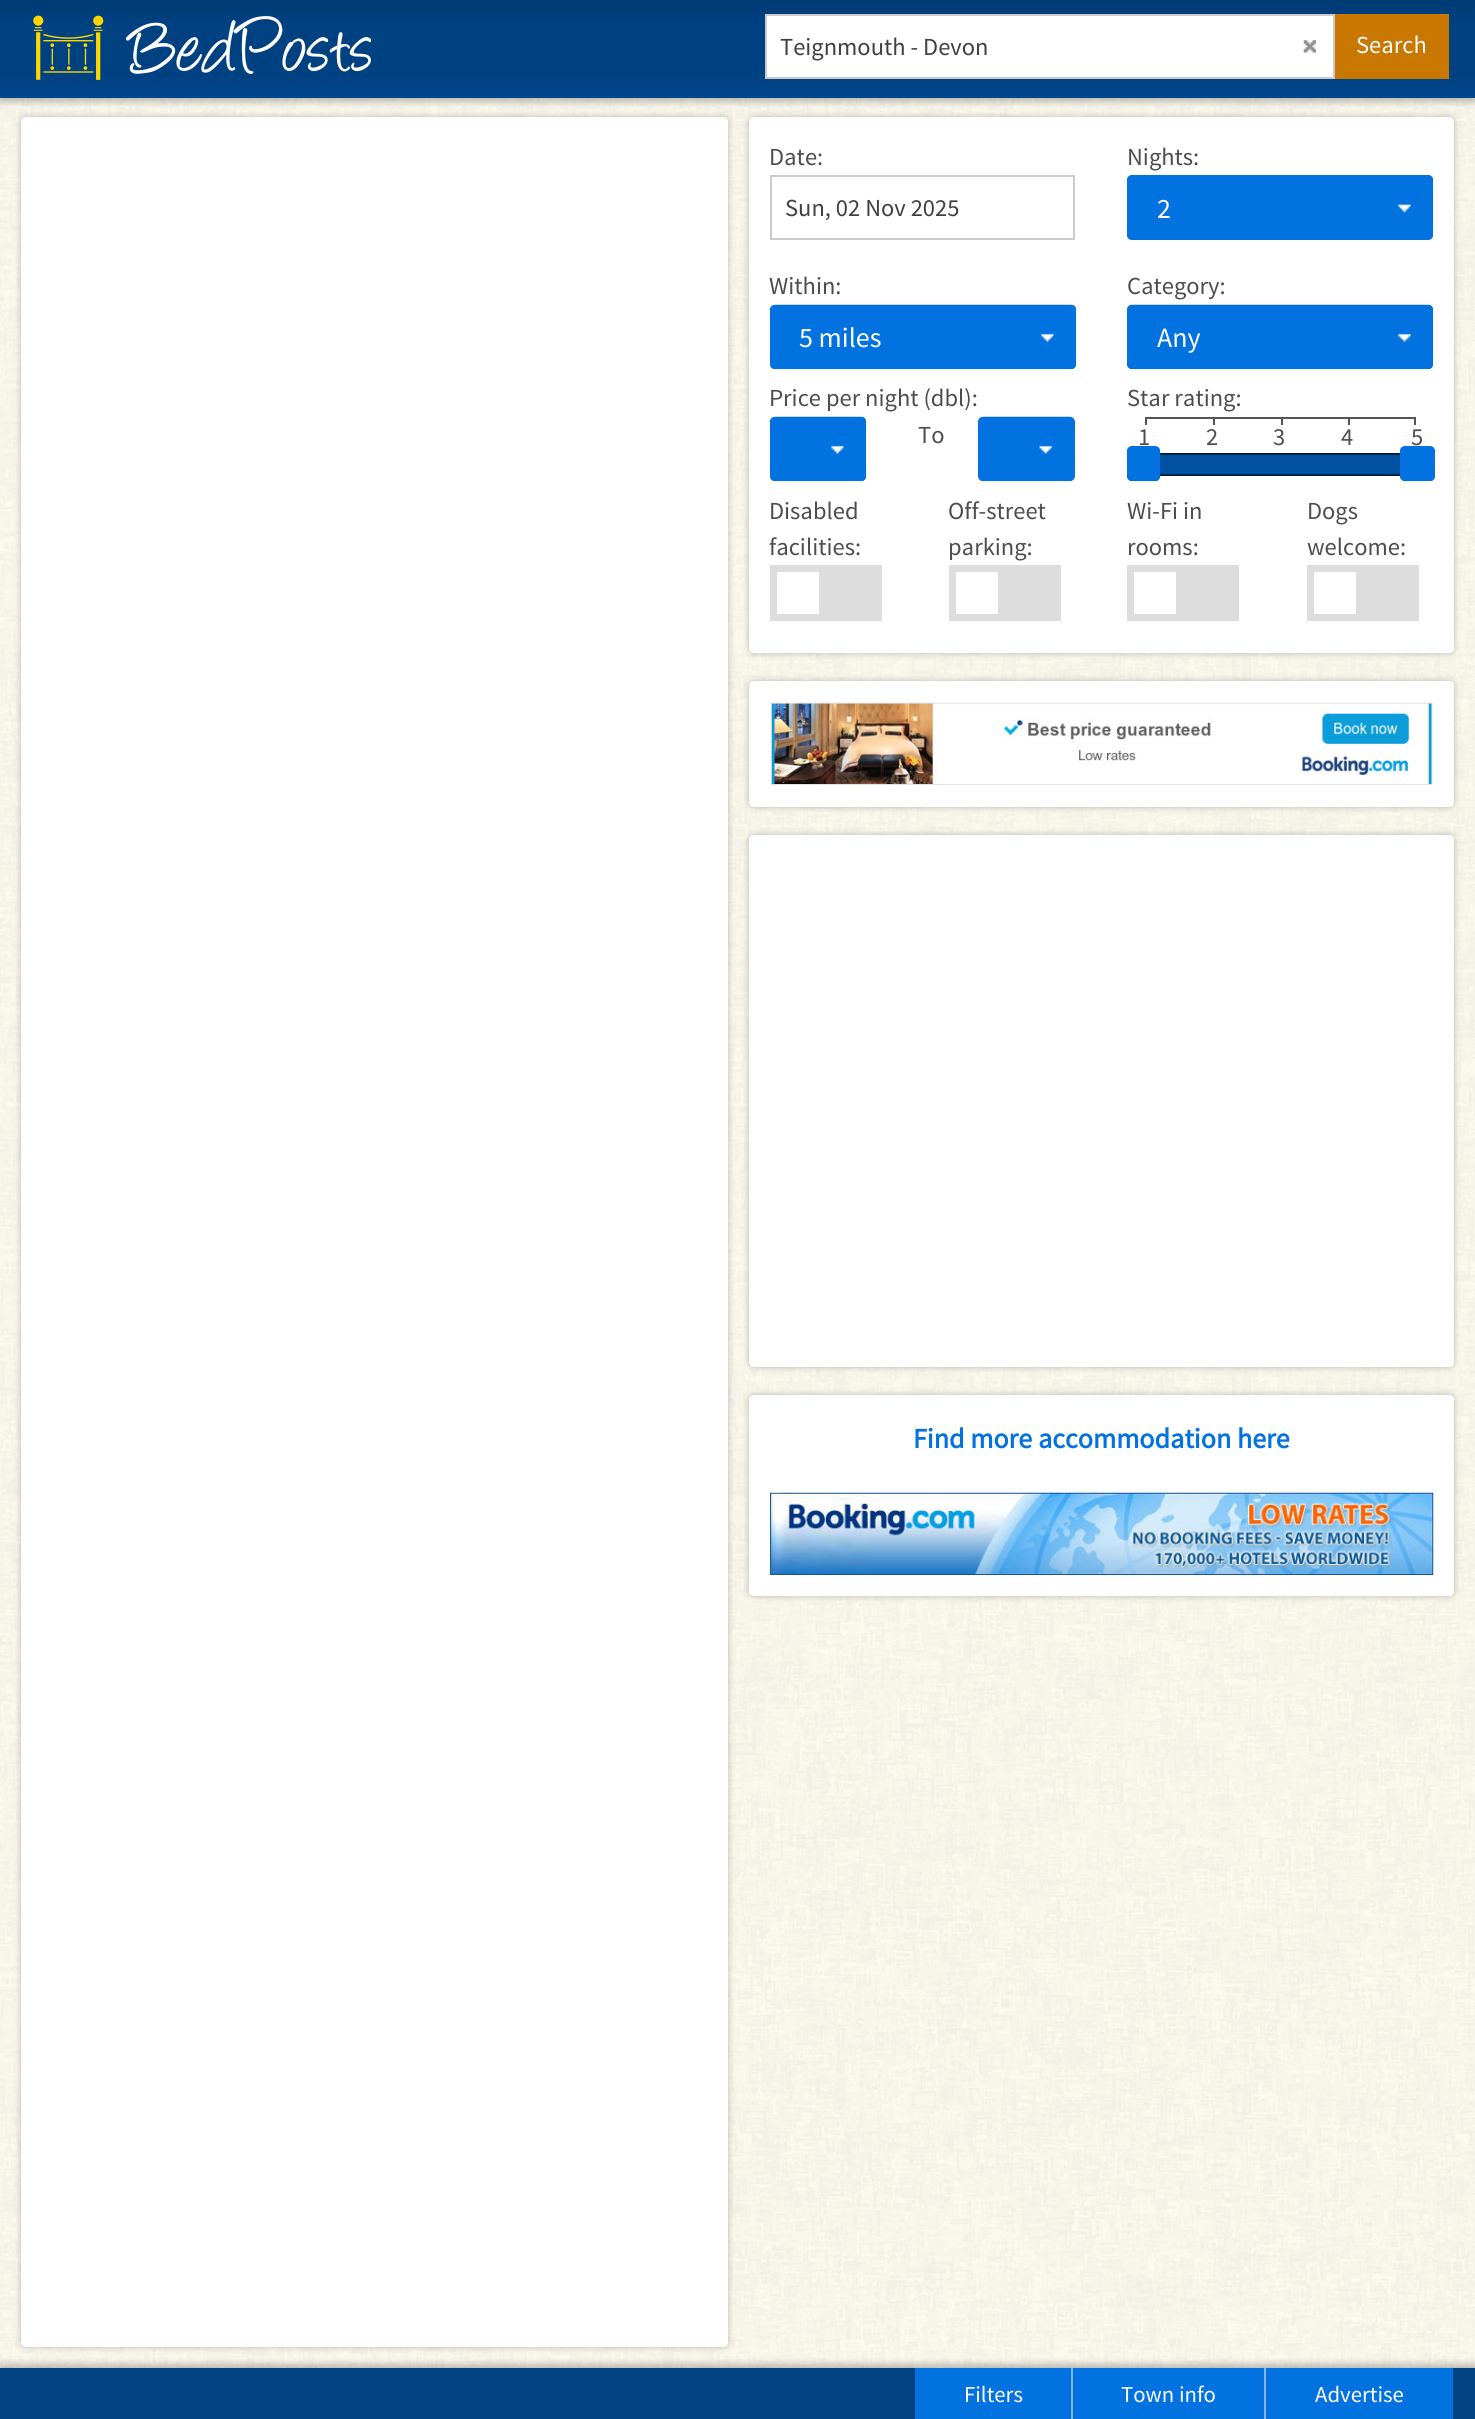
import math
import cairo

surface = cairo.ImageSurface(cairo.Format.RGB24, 1475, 2419)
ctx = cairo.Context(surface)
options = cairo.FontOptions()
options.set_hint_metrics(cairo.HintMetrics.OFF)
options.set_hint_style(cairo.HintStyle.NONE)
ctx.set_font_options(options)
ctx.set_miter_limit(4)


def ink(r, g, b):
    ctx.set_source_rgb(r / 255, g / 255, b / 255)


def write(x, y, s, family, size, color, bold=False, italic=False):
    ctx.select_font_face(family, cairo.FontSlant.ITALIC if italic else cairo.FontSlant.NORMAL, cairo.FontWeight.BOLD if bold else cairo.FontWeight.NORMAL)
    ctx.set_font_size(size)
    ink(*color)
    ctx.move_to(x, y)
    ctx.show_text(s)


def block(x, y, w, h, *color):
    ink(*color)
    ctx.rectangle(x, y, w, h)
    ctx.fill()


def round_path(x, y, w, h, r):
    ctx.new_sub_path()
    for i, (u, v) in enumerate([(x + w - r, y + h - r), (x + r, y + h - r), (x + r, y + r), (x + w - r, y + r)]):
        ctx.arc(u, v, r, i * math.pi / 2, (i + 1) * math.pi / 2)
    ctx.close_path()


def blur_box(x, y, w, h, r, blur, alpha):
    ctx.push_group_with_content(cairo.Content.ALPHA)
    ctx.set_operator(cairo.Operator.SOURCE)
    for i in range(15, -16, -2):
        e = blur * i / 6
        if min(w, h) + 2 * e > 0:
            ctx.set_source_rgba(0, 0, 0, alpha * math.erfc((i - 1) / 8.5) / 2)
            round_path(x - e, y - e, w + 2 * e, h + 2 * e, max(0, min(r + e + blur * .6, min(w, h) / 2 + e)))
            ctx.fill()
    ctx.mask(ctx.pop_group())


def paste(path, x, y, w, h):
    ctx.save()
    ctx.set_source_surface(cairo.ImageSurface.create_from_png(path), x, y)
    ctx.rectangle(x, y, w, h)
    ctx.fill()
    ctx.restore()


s1 = dict(family="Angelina", size=84, color=(255, 255, 255))
s2 = dict(family="Source Sans Pro", size=24.5, color=(64, 64, 64))
s3 = dict(family="Source Sans Pro", size=24.5, color=(255, 255, 255))
s4 = dict(family="Source Sans Pro", size=24.5, color=(77, 77, 77))
s5 = dict(family="Source Sans Pro", size=28, color=(255, 255, 255))
s6 = dict(family="Source Sans Pro", size=28, color=(1, 114, 223), bold=True)
s7 = dict(family="Source Sans Pro", size=22.75, color=(255, 255, 255))

ink(255, 253, 240)
ctx.paint()
paste("pic1.png", 0, 98, 1475, 2270)
ink(0, 0, 0)
blur_box(0, 4, 1475, 98, 0, 3.5, 0.25)
gradient = cairo.LinearGradient(738, 0, 738, 98)
gradient.add_color_stop_rgba(0, 0, 0.231, 0.451, 1)
gradient.add_color_stop_rgba(0.25, 0, 0.255, 0.51, 1)
gradient.add_color_stop_rgba(0.75, 0, 0.255, 0.51, 1)
gradient.add_color_stop_rgba(1, 0, 0.275, 0.549, 1)
ctx.set_source(gradient)
ctx.rectangle(0, 0, 1475, 98)
ctx.fill()
paste("pic2.png", 33, 15, 71, 65)
write(131, 67, "BedPosts", **s1)
block(767, 16, 566, 61, 255, 255, 255)
paste("pic3.png", 1303, 40, 13, 13)
ctx.rectangle(766, 15, 568, 63)
ink(204, 204, 204)
ctx.stroke()
write(780, 55, "Teignmouth - Devon", **s2)
block(1335, 14, 114, 65, 200, 119, 0)
write(1356, 53, "Search", **s3)
ink(0, 0, 0)
blur_box(21, 117, 707, 2230, 5, 3.5, 0.25)
ink(255, 255, 255)
round_path(21, 117, 707, 2230, 5)
ctx.fill()
ink(0, 0, 0)
blur_box(749, 117, 705, 536, 5, 3.5, 0.25)
ink(255, 255, 255)
round_path(749, 117, 705, 536, 5)
ctx.fill()
write(769, 165, "Date:", **s4)
ctx.rectangle(771, 176, 303, 63)
ink(204, 204, 204)
ctx.stroke()
write(785, 216, "Sun, 02 Nov 2025", **s2)
write(1127, 165, "Nights:", **s4)
paste("pic4.png", 1127, 175, 307, 65)
round_path(1128, 176, 304, 63, 4)
ink(1, 114, 223)
ctx.stroke()
write(1157, 218, "2", **s5)
paste("pic5.png", 1397, 204, 14, 9)
write(769, 294, "Within:", **s4)
paste("pic6.png", 770, 304, 307, 66)
round_path(771, 306, 304, 62, 4)
ink(1, 114, 223)
ctx.stroke()
write(799, 347, "5 miles", **s5)
paste("pic7.png", 1040, 333, 14, 9)
write(1127, 294, "Category:", **s4)
paste("pic6.png", 1127, 304, 307, 66)
round_path(1128, 306, 304, 62, 4)
ink(1, 114, 223)
ctx.stroke()
write(1157, 347, "Any", **s5)
paste("pic8.png", 1397, 333, 14, 9)
write(769, 406, "Price per night (dbl):", **s4)
paste("pic9.png", 770, 416, 97, 66)
round_path(771, 418, 94, 62, 4)
ink(1, 114, 223)
ctx.stroke()
paste("pic7.png", 830, 445, 14, 9)
write(918, 443, "To", **s4)
paste("pic10.png", 978, 416, 97, 66)
round_path(979, 418, 95, 62, 4)
ink(1, 114, 223)
ctx.stroke()
paste("pic11.png", 1039, 445, 14, 9)
write(1127, 406, "Star rating:", **s4)
block(1145, 417, 271, 2, 85, 85, 85)
block(1145, 417, 2, 8, 85, 85, 85)
write(1138, 445, "1", **s4)
block(1213, 417, 2, 8, 85, 85, 85)
write(1206, 445, "2", **s4)
block(1281, 417, 2, 8, 85, 85, 85)
write(1273, 445, "3", **s4)
block(1414, 417, 2, 8, 85, 85, 85)
block(1348, 417, 2, 8, 85, 85, 85)
write(1341, 445, "4", **s4)
write(1411, 445, "5", **s4)
ctx.rectangle(1142, 454, 276, 21)
ink(0, 35, 69)
ctx.stroke()
paste("pic13.png", 1160, 455, 240, 20)
paste("pic12.png", 1127, 446, 34, 36)
round_path(1128, 447, 31, 33, 4)
ink(1, 114, 223)
ctx.stroke()
paste("pic14.png", 1400, 446, 35, 36)
round_path(1401, 447, 33, 33, 4)
ctx.stroke()
write(769, 519, "Disabled", **s4)
write(769, 555, "facilities:", **s4)
block(770, 565, 112, 56, 221, 221, 221)
block(777, 572, 42, 42, 255, 255, 255)
write(948, 519, "Off-street", **s4)
write(948, 555, "parking:", **s4)
block(949, 565, 112, 56, 221, 221, 221)
block(956, 572, 42, 42, 255, 255, 255)
write(1127, 519, "Wi-Fi in", **s4)
write(1127, 555, "rooms:", **s4)
block(1127, 565, 112, 56, 221, 221, 221)
block(1134, 572, 42, 42, 255, 255, 255)
write(1307, 519, "Dogs", **s4)
write(1307, 555, "welcome:", **s4)
block(1307, 565, 112, 56, 221, 221, 221)
block(1314, 572, 42, 42, 255, 255, 255)
ink(0, 0, 0)
blur_box(749, 681, 705, 126, 5, 3.5, 0.25)
ink(255, 255, 255)
round_path(749, 681, 705, 126, 5)
ctx.fill()
paste("pic15.png", 770, 701, 663, 85)
ink(0, 0, 0)
blur_box(749, 835, 705, 532, 5, 3.5, 0.25)
ink(255, 255, 255)
round_path(749, 835, 705, 532, 5)
ctx.fill()
ink(0, 0, 0)
blur_box(749, 1395, 705, 201, 5, 3.5, 0.25)
ink(255, 255, 255)
round_path(749, 1395, 705, 201, 5)
ctx.fill()
write(913, 1448, "Find more accommodation here", **s6)
paste("pic16.png", 770, 1492, 664, 83)
ink(0, 0, 0)
blur_box(0, 2364, 1475, 53, 0, 3.5, 0.25)
block(0, 2368, 1475, 51, 0, 66, 130)
block(915, 2368, 156, 51, 1, 114, 223)
write(964, 2402, "Filters", **s7)
block(1073, 2368, 191, 51, 1, 114, 223)
block(1071, 2368, 2, 51, 128, 185, 239)
write(1121, 2402, "Town info", **s7)
block(1266, 2368, 187, 51, 1, 114, 223)
block(1264, 2368, 2, 51, 128, 185, 239)
write(1315, 2402, "Advertise", **s7)
surface.write_to_png("screenshot.png")
